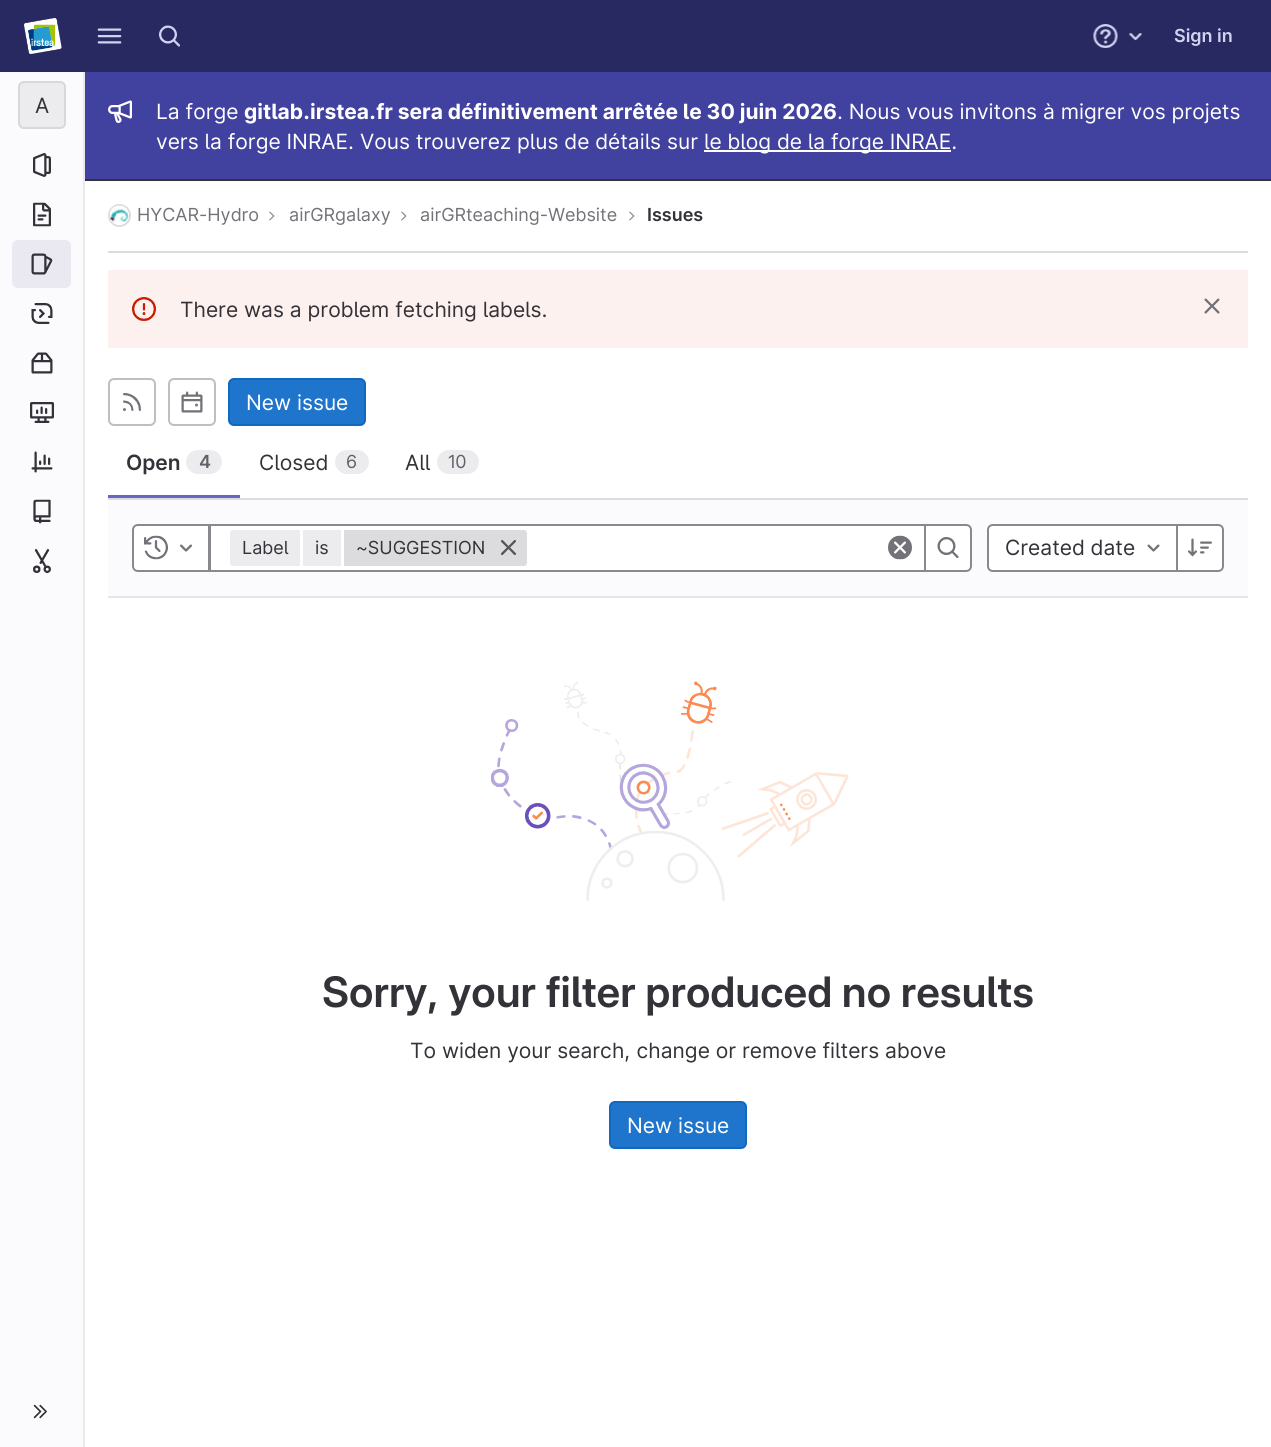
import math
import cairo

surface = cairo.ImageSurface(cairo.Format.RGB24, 1271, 1447)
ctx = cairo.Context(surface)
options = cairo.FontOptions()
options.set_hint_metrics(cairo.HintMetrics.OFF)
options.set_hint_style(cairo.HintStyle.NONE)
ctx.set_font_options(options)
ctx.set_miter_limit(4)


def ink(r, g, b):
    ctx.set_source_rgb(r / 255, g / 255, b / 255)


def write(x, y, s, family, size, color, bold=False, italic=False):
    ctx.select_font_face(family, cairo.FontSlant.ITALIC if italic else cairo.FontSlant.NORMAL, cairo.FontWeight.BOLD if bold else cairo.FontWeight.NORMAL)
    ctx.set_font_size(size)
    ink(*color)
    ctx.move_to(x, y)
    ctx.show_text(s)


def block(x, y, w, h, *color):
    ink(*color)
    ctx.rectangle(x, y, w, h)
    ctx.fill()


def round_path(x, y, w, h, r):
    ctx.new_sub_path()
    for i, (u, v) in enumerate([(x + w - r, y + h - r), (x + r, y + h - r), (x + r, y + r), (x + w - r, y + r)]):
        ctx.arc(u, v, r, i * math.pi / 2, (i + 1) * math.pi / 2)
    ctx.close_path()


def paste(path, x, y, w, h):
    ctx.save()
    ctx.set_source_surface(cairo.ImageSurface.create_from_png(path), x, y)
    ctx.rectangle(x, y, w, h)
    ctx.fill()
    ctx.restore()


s1 = dict(family="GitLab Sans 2 SemiBold", size=18, color=(209, 209, 240))
s2 = dict(family="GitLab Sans", size=21, color=(51, 50, 56))
s3 = dict(family="GitLab Sans", size=21, color=(255, 255, 255))
s4 = dict(family="GitLab Sans", size=21, color=(255, 255, 255), bold=True)
s5 = dict(family="GitLab Sans", size=18, color=(115, 114, 120))
s6 = dict(family="GitLab Sans 2 SemiBold", size=18, color=(51, 50, 56))
s7 = dict(family="GitLab Sans 2 SemiBold", size=21, color=(51, 50, 56))
s8 = dict(family="GitLab Sans 2 SemiBold", size=18, color=(98, 97, 104))
s9 = dict(family="GitLab Sans", size=18, color=(98, 97, 104))
s10 = dict(family="GitLab Sans", size=18, color=(51, 50, 56))
s11 = dict(family="GitLab Sans SemiBold", size=42, color=(51, 50, 56))

ink(255, 255, 255)
ctx.paint()
block(0, 0, 1271, 72, 41, 41, 97)
paste("pic1.png", 24, 18, 38, 36)
paste("pic2.png", 97, 28, 25, 16)
paste("pic3.png", 159, 25, 21, 22)
paste("pic4.png", 1093, 24, 25, 24)
paste("pic5.png", 1129, 33, 13, 8)
write(1174, 42, "Sign in", **s1)
block(0, 72, 83, 1375, 251, 250, 253)
block(84, 179, 1187, 2, 51, 50, 56)
block(83, 72, 2, 1375, 233, 233, 233)
ink(236, 236, 239)
round_path(18, 81, 48, 48, 6)
ctx.fill()
round_path(19, 82, 46, 46, 5)
ctx.set_source_rgba(0.122, 0.118, 0.141, 0.1)
ctx.stroke()
write(35, 113, "A", **s2)
paste("pic6.png", 33, 153, 18, 24)
paste("pic7.png", 33, 202, 18, 25)
ink(234, 233, 241)
round_path(12, 240, 59, 48, 6)
ctx.fill()
paste("pic8.png", 31, 253, 22, 22)
paste("pic9.png", 31, 303, 22, 21)
paste("pic10.png", 31, 352, 22, 22)
paste("pic11.png", 30, 402, 24, 21)
paste("pic12.png", 31, 451, 22, 22)
paste("pic13.png", 33, 499, 18, 25)
paste("pic14.png", 33, 549, 18, 24)
paste("pic15.png", 33, 1404, 14, 15)
block(85, 72, 1186, 107, 65, 65, 159)
paste("pic16.png", 108, 100, 24, 23)
write(156, 119, "La forge", **s3)
write(244, 119, "gitlab.irstea.fr sera définitivement arrêtée le 30 juin 2026", **s4)
write(837, 119, ". Nous vous invitons à migrer vos projets", **s3)
write(156, 149, "vers la forge INRAE. Vous trouverez plus de détails sur", **s3)
block(704, 150, 247, 2, 255, 255, 255)
write(704, 149, "le blog de la forge INRAE.", **s3)
block(108, 251, 1140, 2, 220, 220, 222)
ctx.new_path()
ctx.arc(119.5, 215.5, 10.5, 0, 2 * math.pi)
ctx.stroke()
paste("pic17.png", 109, 205, 20, 20)
write(137, 221, "HYCAR-Hydro", **s5)
paste("pic18.png", 269, 211, 6, 10)
write(289, 221, "airGRgalaxy", **s5)
paste("pic18.png", 401, 211, 6, 10)
write(420, 221, "airGRteaching-Website", **s5)
paste("pic18.png", 629, 211, 6, 10)
write(647, 221, "Issues", **s6)
block(108, 270, 1140, 78, 252, 241, 239)
paste("pic19.png", 132, 297, 24, 24)
write(180, 317, "There was a problem fetching labels.", **s2)
paste("pic20.png", 1204, 298, 16, 16)
block(108, 498, 1140, 2, 220, 220, 222)
round_path(109, 379, 46, 46, 5)
ink(191, 191, 195)
ctx.stroke()
paste("pic21.png", 123, 393, 18, 18)
round_path(169, 379, 46, 46, 5)
ctx.stroke()
paste("pic22.png", 181, 391, 22, 22)
ink(31, 117, 203)
round_path(229, 379, 136, 46, 5)
ctx.fill_preserve()
ink(16, 104, 191)
ctx.stroke()
write(246, 410, "New issue", **s3)
block(108, 495, 132, 3, 102, 102, 196)
write(126, 470, "Open", **s7)
ink(236, 236, 239)
round_path(186, 450, 36, 24, 12)
ctx.fill()
write(199, 468, "4", **s8)
write(259, 470, "Closed", **s2)
ink(236, 236, 239)
round_path(335, 450, 34, 24, 12)
ctx.fill()
write(346, 468, "6", **s9)
write(405, 470, "All", **s2)
ink(236, 236, 239)
round_path(437, 450, 42, 24, 12)
ctx.fill()
write(448, 468, "10", **s9)
block(108, 500, 1140, 96, 251, 250, 253)
block(108, 596, 1140, 2, 230, 230, 234)
block(132, 524, 6, 48, 255, 255, 255)
ctx.rectangle(210, 525, 715, 46)
ctx.fill_preserve()
ink(137, 136, 141)
ctx.stroke()
ink(255, 255, 255)
ctx.new_path()
ctx.move_to(138, 525)
ctx.line_to(209, 525)
ctx.line_to(209, 571)
ctx.line_to(138, 571)
ctx.curve_to(135, 571, 133, 569, 133, 566)
ctx.line_to(133, 530)
ctx.curve_to(133, 527, 135, 525, 138, 525)
ctx.close_path()
ctx.fill_preserve()
ink(137, 136, 141)
ctx.stroke()
paste("pic23.png", 144, 535, 24, 25)
paste("pic24.png", 180, 544, 12, 8)
ink(236, 236, 239)
ctx.new_path()
ctx.move_to(233, 530)
ctx.line_to(300, 530)
ctx.line_to(300, 566)
ctx.line_to(233, 566)
ctx.curve_to(231.5, 566, 230, 564.5, 230, 563)
ctx.line_to(230, 533)
ctx.curve_to(230, 531.5, 231.5, 530, 233, 530)
ctx.close_path()
ctx.fill()
write(242, 554, "Label", **s10)
block(303, 530, 38, 36, 236, 236, 239)
write(315, 554, "is", **s10)
ink(220, 220, 222)
ctx.new_path()
ctx.move_to(344, 530)
ctx.line_to(524, 530)
ctx.curve_to(525.5, 530, 527, 531.5, 527, 533)
ctx.line_to(527, 563)
ctx.curve_to(527, 564.5, 525.5, 566, 524, 566)
ctx.line_to(344, 566)
ctx.close_path()
ctx.fill()
write(356, 554, "~SUGGESTION", **s10)
paste("pic25.png", 500, 540, 16, 15)
paste("pic26.png", 888, 535, 24, 25)
block(966, 524, 6, 48, 255, 255, 255)
ctx.new_path()
ctx.move_to(925, 525)
ctx.line_to(966, 525)
ctx.curve_to(969, 525, 971, 527, 971, 530)
ctx.line_to(971, 566)
ctx.curve_to(971, 569, 969, 571, 966, 571)
ctx.line_to(925, 571)
ctx.close_path()
ctx.fill_preserve()
ink(137, 136, 141)
ctx.stroke()
paste("pic27.png", 937, 537, 22, 21)
ink(255, 255, 255)
ctx.new_path()
ctx.move_to(993, 525)
ctx.line_to(1177, 525)
ctx.line_to(1177, 571)
ctx.line_to(993, 571)
ctx.curve_to(990, 571, 988, 569, 988, 566)
ctx.line_to(988, 530)
ctx.curve_to(988, 527, 990, 525, 993, 525)
ctx.close_path()
ctx.fill_preserve()
ink(137, 136, 141)
ctx.stroke()
write(1005, 555, "Created date", **s2)
paste("pic28.png", 1147, 544, 13, 8)
ink(255, 255, 255)
ctx.new_path()
ctx.move_to(1177, 525)
ctx.line_to(1218, 525)
ctx.curve_to(1221, 525, 1223, 527, 1223, 530)
ctx.line_to(1223, 566)
ctx.curve_to(1223, 569, 1221, 571, 1218, 571)
ctx.line_to(1177, 571)
ctx.close_path()
ctx.fill_preserve()
ink(137, 136, 141)
ctx.stroke()
paste("pic29.png", 1188, 538, 24, 19)
paste("pic30.png", 491, 681, 358, 220)
write(322, 1007, "Sorry, your filter produced no results", **s11)
write(410, 1058, "To widen your search, change or remove filters above", **s2)
ink(31, 117, 203)
round_path(610, 1102, 136, 46, 5)
ctx.fill_preserve()
ink(16, 104, 191)
ctx.stroke()
write(627, 1133, "New issue", **s3)
surface.write_to_png("screenshot.png")
